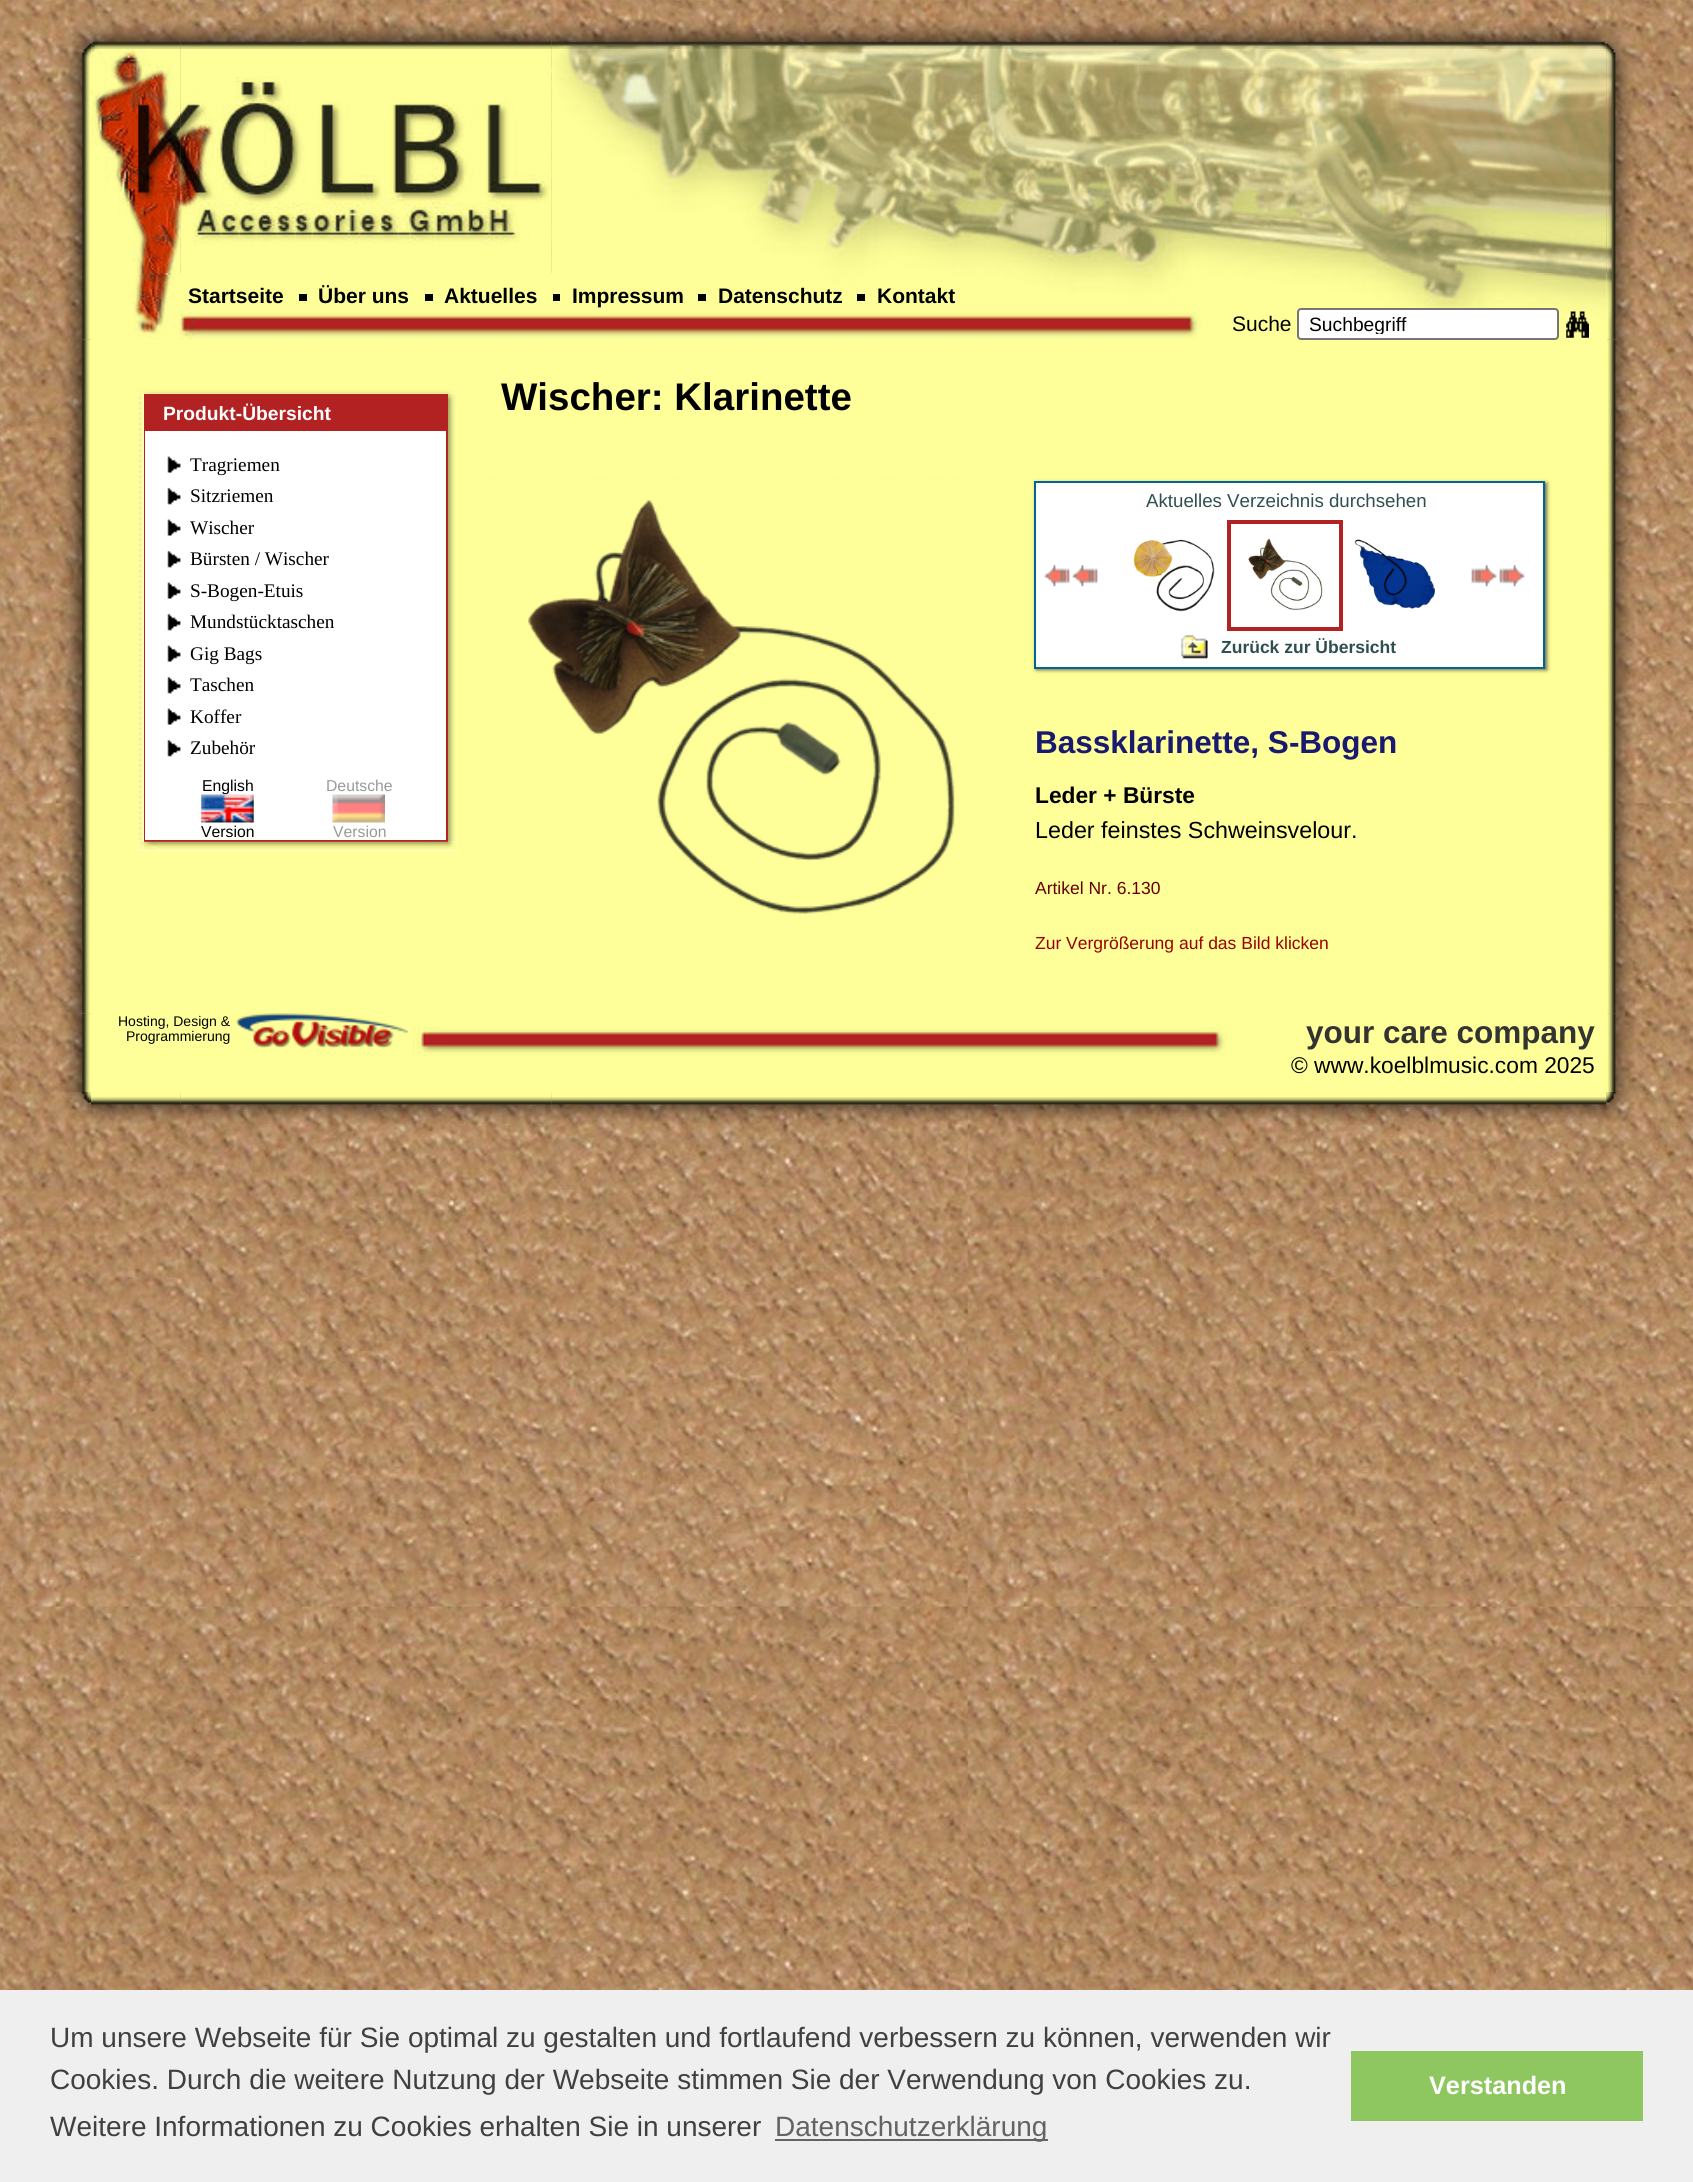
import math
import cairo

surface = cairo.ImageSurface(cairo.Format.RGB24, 1693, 2182)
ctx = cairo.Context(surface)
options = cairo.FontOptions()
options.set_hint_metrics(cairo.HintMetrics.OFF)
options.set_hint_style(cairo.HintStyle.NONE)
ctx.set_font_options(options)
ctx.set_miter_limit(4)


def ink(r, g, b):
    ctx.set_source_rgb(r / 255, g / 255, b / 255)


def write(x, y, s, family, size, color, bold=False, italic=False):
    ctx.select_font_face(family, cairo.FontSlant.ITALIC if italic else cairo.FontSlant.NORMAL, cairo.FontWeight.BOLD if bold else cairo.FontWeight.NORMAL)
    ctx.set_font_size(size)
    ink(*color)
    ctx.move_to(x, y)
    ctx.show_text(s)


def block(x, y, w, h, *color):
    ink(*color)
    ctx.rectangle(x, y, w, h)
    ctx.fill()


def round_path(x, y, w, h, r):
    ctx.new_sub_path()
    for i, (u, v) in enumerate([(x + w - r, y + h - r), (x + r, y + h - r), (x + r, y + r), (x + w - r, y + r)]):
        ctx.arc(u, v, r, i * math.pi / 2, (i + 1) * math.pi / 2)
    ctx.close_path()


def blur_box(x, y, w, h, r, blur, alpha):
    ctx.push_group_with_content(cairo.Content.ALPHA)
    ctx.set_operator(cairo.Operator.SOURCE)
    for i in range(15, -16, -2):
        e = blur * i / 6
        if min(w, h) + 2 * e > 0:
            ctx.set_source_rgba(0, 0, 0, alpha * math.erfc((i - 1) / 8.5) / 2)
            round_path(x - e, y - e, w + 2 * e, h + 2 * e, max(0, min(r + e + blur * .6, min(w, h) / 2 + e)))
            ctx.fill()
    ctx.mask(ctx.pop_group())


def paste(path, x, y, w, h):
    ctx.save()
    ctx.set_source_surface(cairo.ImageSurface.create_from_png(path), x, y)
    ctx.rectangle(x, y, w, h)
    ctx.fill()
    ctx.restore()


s1 = dict(family="Liberation Sans", size=21, color=(0, 0, 0), bold=True)
s2 = dict(family="Liberation Sans", size=21, color=(0, 0, 0))
s3 = dict(family="Liberation Sans", size=19.25, color=(0, 0, 0))
s4 = dict(family="Liberation Sans", size=19.25, color=(255, 255, 255), bold=True)
s5 = dict(family="Liberation Serif", size=19.25, color=(0, 0, 0))
s6 = dict(family="Liberation Sans", size=15.75, color=(0, 0, 0))
s7 = dict(family="Liberation Sans", size=15.75, color=(153, 153, 153))
s8 = dict(family="Liberation Sans", size=38.5, color=(0, 0, 0), bold=True)
s9 = dict(family="Liberation Sans", size=18.7, color=(47, 79, 79))
s10 = dict(family="Liberation Sans", size=17.5, color=(47, 79, 79), bold=True)
s11 = dict(family="Liberation Sans", size=31.5, color=(25, 25, 112), bold=True)
s12 = dict(family="Liberation Sans", size=22.75, color=(0, 0, 0), bold=True)
s13 = dict(family="Liberation Sans", size=23.3, color=(0, 0, 0))
s14 = dict(family="Liberation Sans", size=17.5, color=(102, 0, 0))
s15 = dict(family="Liberation Sans", size=17.5, color=(153, 0, 0))
s16 = dict(family="Liberation Sans", size=14, color=(0, 0, 0))
s17 = dict(family="Liberation Sans", size=31.5, color=(51, 51, 51), bold=True)
s18 = dict(family="Liberation Sans", size=22.75, color=(0, 0, 0))
s19 = dict(family="Liberation Sans", size=28, color=(64, 64, 64))
s20 = dict(family="Liberation Sans", size=28, color=(99, 99, 99))
s21 = dict(family="Liberation Sans", size=25.25, color=(255, 255, 255), bold=True)

ink(255, 255, 255)
ctx.paint()
paste("pic1.png", 0, 0, 1693, 1990)
paste("pic2.png", 63, 22, 28, 27)
paste("pic3.png", 91, 20, 90, 29)
paste("pic4.png", 180, 20, 372, 29)
paste("pic5.png", 551, 20, 646, 29)
paste("pic6.png", 1197, 20, 410, 29)
paste("pic7.png", 1606, 25, 25, 24)
paste("pic8.png", 60, 49, 31, 224)
paste("pic9.png", 91, 49, 90, 224)
paste("pic10.png", 180, 49, 372, 224)
paste("pic11.png", 551, 49, 646, 224)
paste("pic13.png", 1606, 49, 29, 224)
paste("pic12.png", 1197, 49, 410, 224)
paste("pic14.png", 60, 273, 31, 67)
block(91, 273, 1516, 740, 255, 255, 153)
paste("pic17.png", 180, 273, 1017, 67)
paste("pic15.png", 133, 273, 48, 66)
paste("pic18.png", 1197, 273, 410, 57)
paste("pic16.png", 1606, 273, 29, 67)
write(188, 303, "Startseite", **s1)
block(299, 294, 8, 7, 0, 0, 0)
write(318, 303, "Über uns", **s1)
block(425, 294, 8, 7, 0, 0, 0)
write(444, 303, "Aktuelles", **s1)
block(553, 294, 7, 7, 0, 0, 0)
write(572, 303, "Impressum", **s1)
block(698, 294, 8, 7, 0, 0, 0)
write(718, 303, "Datenschutz", **s1)
block(857, 294, 8, 7, 0, 0, 0)
write(877, 303, "Kontakt", **s1)
write(1232, 331, "Suche", **s2)
ink(255, 255, 255)
round_path(1298, 309, 260, 30, 3)
ctx.fill_preserve()
ink(118, 118, 118)
ctx.stroke()
ctx.save()
ctx.rectangle(1304, 313, 248, 21)
ctx.clip()
write(1309, 331, "Suchbegriff", **s3)
ctx.restore()
paste("pic19.png", 1566, 311, 23, 27)
paste("pic20.png", 60, 339, 31, 675)
block(138, 389, 319, 462, 255, 255, 255)
paste("pic21.png", 143, 388, 305, 6)
block(138, 389, 6, 5, 252, 253, 152)
paste("pic28.png", 448, 393, 9, 449)
paste("pic22.png", 448, 389, 9, 5)
paste("pic23.png", 138, 394, 6, 448)
block(144, 394, 304, 2, 178, 34, 34)
block(144, 396, 1, 444, 178, 34, 34)
block(145, 396, 301, 35, 178, 34, 34)
write(163, 420, "Produkt-Übersicht", **s4)
paste("pic24.png", 167, 456, 14, 17)
write(190, 471, "Tragriemen", **s5)
paste("pic25.png", 167, 487, 14, 18)
write(190, 502, "Sitzriemen", **s5)
paste("pic24.png", 167, 519, 14, 17)
write(190, 534, "Wischer", **s5)
paste("pic25.png", 167, 550, 14, 18)
write(190, 565, "Bürsten / Wischer", **s5)
paste("pic24.png", 167, 582, 14, 17)
write(190, 597, "S-Bogen-Etuis", **s5)
paste("pic25.png", 167, 613, 14, 18)
write(190, 628, "Mundstücktaschen", **s5)
paste("pic24.png", 167, 645, 14, 17)
write(190, 660, "Gig Bags", **s5)
paste("pic25.png", 167, 676, 14, 18)
write(190, 691, "Taschen", **s5)
paste("pic24.png", 167, 708, 14, 17)
write(190, 723, "Koffer", **s5)
paste("pic25.png", 167, 739, 14, 18)
write(190, 754, "Zubehör", **s5)
write(202, 791, "English", **s6)
paste("pic26.png", 201, 794, 53, 29)
write(201, 837, "Version", **s6)
write(326, 791, "Deutsche", **s7)
paste("pic27.png", 332, 794, 53, 29)
write(333, 837, "Version", **s7)
block(446, 396, 2, 444, 178, 34, 34)
block(144, 840, 304, 2, 178, 34, 34)
paste("pic30.png", 143, 841, 305, 10)
paste("pic29.png", 138, 841, 6, 10)
paste("pic31.png", 448, 841, 9, 10)
write(501, 410, "Wischer: Klarinette", **s8)
paste("pic32.png", 485, 472, 480, 477)
ink(50, 50, 50)
blur_box(1036, 483, 511, 187, 0, 2, 0.75)
ink(255, 255, 255)
ctx.rectangle(1035, 482, 509, 186)
ctx.fill_preserve()
ink(0, 102, 153)
ctx.stroke()
write(1146, 507, "Aktuelles Verzeichnis durchsehen", **s9)
paste("pic33.png", 1044, 565, 54, 22)
paste("pic34.png", 1133, 539, 82, 73)
block(1227, 520, 4, 3, 178, 34, 34)
block(1230, 520, 109, 4, 178, 34, 34)
block(1339, 520, 4, 107, 178, 34, 34)
block(1227, 523, 4, 108, 178, 34, 34)
paste("pic35.png", 1248, 538, 75, 72)
block(1230, 627, 113, 4, 178, 34, 34)
paste("pic36.png", 1354, 539, 82, 70)
paste("pic37.png", 1471, 565, 54, 22)
paste("pic38.png", 1180, 634, 28, 25)
write(1221, 653, "Zurück zur Übersicht", **s10)
write(1035, 753, "Bassklarinette, S-Bogen", **s11)
write(1035, 803, "Leder + Bürste", **s12)
write(1035, 838, "Leder feinstes Schweinsvelour.", **s13)
write(1035, 894, "Artikel Nr. 6.130", **s14)
write(1035, 949, "Zur Vergrößerung auf das Bild klicken", **s15)
paste("pic39.png", 1606, 339, 29, 675)
paste("pic40.png", 60, 1013, 31, 79)
block(91, 1013, 1516, 79, 255, 255, 153)
write(118, 1026, "Hosting, Design &", **s16)
write(126, 1041, "Programmierung", **s16)
paste("pic41.png", 236, 1013, 172, 36)
paste("pic42.png", 413, 1027, 813, 29)
write(1306, 1043, "your care company", **s17)
write(1291, 1073, "© www.koelblmusic.com 2025", **s18)
paste("pic43.png", 1607, 1013, 28, 79)
paste("pic44.png", 63, 1092, 28, 30)
paste("pic45.png", 91, 1092, 90, 32)
paste("pic46.png", 180, 1092, 233, 32)
paste("pic47.png", 413, 1092, 139, 32)
paste("pic48.png", 551, 1092, 1056, 33)
paste("pic49.png", 1606, 1092, 28, 31)
block(0, 1990, 1693, 192, 239, 239, 239)
write(50, 2047, "Um unsere Webseite für Sie optimal zu gestalten und fortlaufend verbessern zu können, verwenden wir", **s19)
write(50, 2089, "Cookies. Durch die weitere Nutzung der Webseite stimmen Sie der Verwendung von Cookies zu.", **s19)
write(50, 2136, "Weitere Informationen zu Cookies erhalten Sie in unserer", **s19)
block(775, 2139, 273, 2, 99, 99, 99)
write(775, 2136, "Datenschutzerklärung", **s20)
block(1351, 2051, 292, 70, 142, 199, 96)
write(1429, 2094, "Verstanden", **s21)
surface.write_to_png("screenshot.png")
